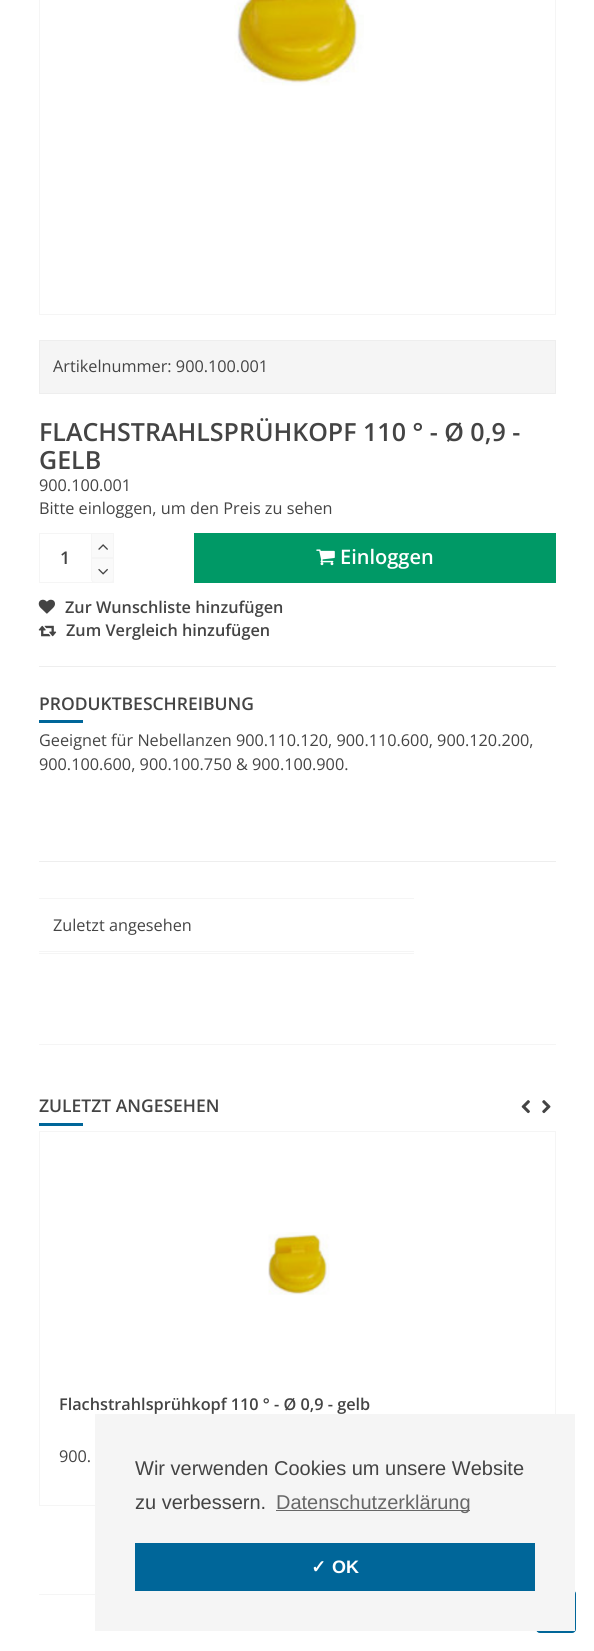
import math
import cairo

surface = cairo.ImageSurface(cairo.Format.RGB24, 594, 1651)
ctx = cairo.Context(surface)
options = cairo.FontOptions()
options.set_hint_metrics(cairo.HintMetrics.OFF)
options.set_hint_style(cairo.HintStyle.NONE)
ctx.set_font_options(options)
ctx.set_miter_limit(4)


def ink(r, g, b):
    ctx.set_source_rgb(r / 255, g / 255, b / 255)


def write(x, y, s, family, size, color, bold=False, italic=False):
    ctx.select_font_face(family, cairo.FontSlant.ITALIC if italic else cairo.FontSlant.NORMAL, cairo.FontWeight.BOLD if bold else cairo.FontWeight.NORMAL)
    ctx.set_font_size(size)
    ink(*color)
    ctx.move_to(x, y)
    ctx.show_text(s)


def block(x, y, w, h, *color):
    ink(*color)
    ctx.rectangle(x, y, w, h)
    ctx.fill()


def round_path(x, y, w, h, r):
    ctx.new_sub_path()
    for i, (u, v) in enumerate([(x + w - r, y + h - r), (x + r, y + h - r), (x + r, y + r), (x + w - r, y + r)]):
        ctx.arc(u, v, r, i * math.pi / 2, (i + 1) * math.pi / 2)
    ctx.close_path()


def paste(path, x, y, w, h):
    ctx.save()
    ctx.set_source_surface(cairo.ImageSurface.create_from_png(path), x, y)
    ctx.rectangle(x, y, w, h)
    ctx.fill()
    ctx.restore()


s1 = dict(family="Open Sans", size=16.25, color=(68, 68, 68))
s2 = dict(family="Open Sans SemiBold", size=25, color=(68, 68, 68))
s3 = dict(family="Open Sans SemiBold", size=17.5, color=(68, 68, 68))
s4 = dict(family="Open Sans SemiBold", size=20, color=(255, 255, 255))
s5 = dict(family="Open Sans SemiBold", size=16.25, color=(68, 68, 68))
s6 = dict(family="Liberation Sans", size=20, color=(68, 68, 68))
s7 = dict(family="Liberation Sans", size=20, color=(103, 103, 103))
s8 = dict(family="DejaVu Sans", size=18, color=(255, 255, 255), bold=True)
s9 = dict(family="Liberation Sans", size=18, color=(255, 255, 255), bold=True)

ink(255, 255, 255)
ctx.paint()
ctx.rectangle(39.5, -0.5, 516, 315)
ink(245, 245, 245)
ctx.set_line_width(1)
ctx.stroke()
paste("pic1.png", 234, 0, 130, 86)
ctx.rectangle(39.5, 340.5, 516, 53)
ctx.fill_preserve()
ink(238, 238, 238)
ctx.stroke()
write(53, 372, "Artikelnummer: 900.100.001", **s1)
write(39, 441, "FLACHSTRAHLSPRÜHKOPF 110 ° - Ø 0,9 -", **s2)
write(39, 469, "GELB", **s2)
write(39, 491, "900.100.001", **s1)
write(39, 514, "Bitte einloggen, um den Preis zu sehen", **s1)
ctx.rectangle(39.5, 533.5, 74, 49)
ink(245, 245, 245)
ctx.stroke()
write(60, 564, "1", **s3)
ink(250, 250, 250)
ctx.rectangle(91.5, 533.5, 22, 24)
ctx.fill_preserve()
ink(245, 245, 245)
ctx.stroke()
paste("pic2.png", 98, 544, 10, 6)
ink(250, 250, 250)
ctx.new_path()
ctx.move_to(91.5, 558.5)
ctx.line_to(113.5, 558.5)
ctx.line_to(113.5, 579)
ctx.curve_to(113.5, 581, 112, 582.5, 110, 582.5)
ctx.line_to(95, 582.5)
ctx.curve_to(93, 582.5, 91.5, 581, 91.5, 579)
ctx.close_path()
ctx.fill_preserve()
ink(245, 245, 245)
ctx.stroke()
paste("pic3.png", 98, 568, 10, 7)
block(194, 533, 362, 50, 0, 153, 102)
paste("pic4.png", 316, 549, 19, 17)
write(340, 564, "Einloggen", **s4)
paste("pic5.png", 38, 599, 17, 15)
write(65, 613, "Zur Wunschliste hinzufügen", **s5)
paste("pic6.png", 38, 625, 19, 12)
write(66, 636, "Zum Vergleich hinzufügen", **s5)
block(39, 666, 517, 1, 238, 238, 238)
block(39, 861, 517, 1, 238, 238, 238)
write(39, 710, "PRODUKTBESCHREIBUNG", **s3)
block(39, 720, 44, 3, 0, 102, 153)
write(39, 746, "Geeignet für Nebellanzen 900.110.120, 900.110.600, 900.120.200,", **s1)
write(39, 770, "900.100.600, 900.100.750 & 900.100.900.", **s1)
block(39, 898, 375, 1, 245, 245, 245)
block(39, 953, 375, 1, 245, 245, 245)
block(39, 951, 375, 1, 245, 245, 245)
write(53, 931, "Zuletzt angesehen", **s1)
block(39, 1044, 517, 1, 245, 245, 245)
block(39, 1594, 56, 1, 245, 245, 245)
write(39, 1112, "ZULETZT ANGESEHEN", **s3)
block(39, 1123, 44, 3, 0, 102, 153)
paste("pic7.png", 521, 1100, 9, 14)
paste("pic8.png", 542, 1100, 9, 14)
ctx.rectangle(39.5, 1131.5, 516, 374)
ink(245, 245, 245)
ctx.stroke()
paste("pic9.png", 268, 1232, 62, 63)
write(59, 1410, "Flachstrahlsprühkopf 110 ° - Ø 0,9 - gelb", **s5)
write(59, 1462, "900.", **s1)
ink(0, 102, 153)
round_path(536.5, 1590.5, 39, 42, 3.5)
ctx.fill_preserve()
ctx.stroke()
block(95, 1414, 480, 217, 245, 245, 245)
write(135, 1475, "Wir verwenden Cookies um unsere Website", **s6)
write(135, 1509, "zu verbessern.", **s6)
block(276, 1510, 194, 1, 103, 103, 103)
write(276, 1509, "Datenschutzerklärung", **s7)
block(135, 1543, 400, 48, 0, 102, 153)
write(311, 1573, "✓", **s8)
write(332, 1573, "OK", **s9)
surface.write_to_png("screenshot.png")
